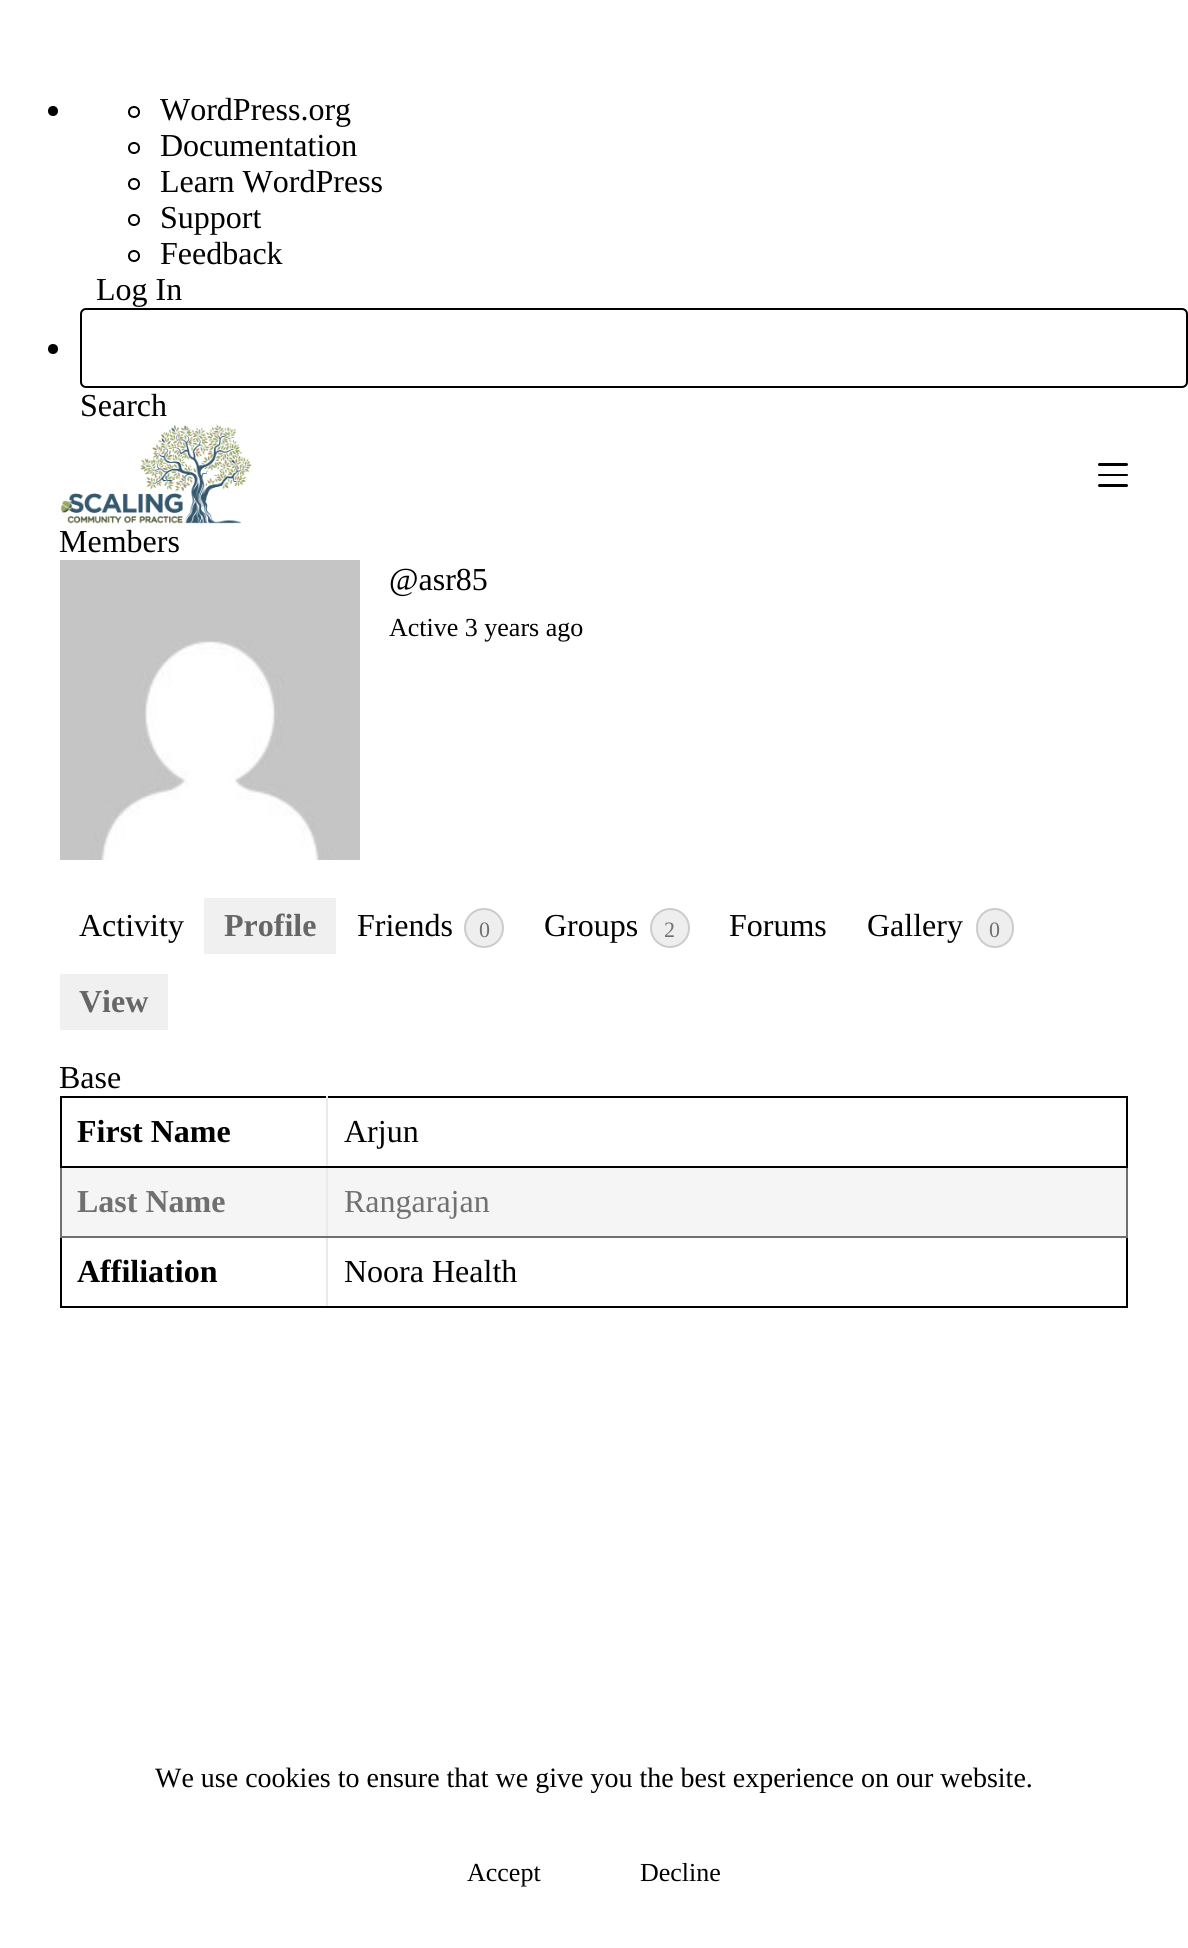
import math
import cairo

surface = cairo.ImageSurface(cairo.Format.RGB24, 1188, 1948)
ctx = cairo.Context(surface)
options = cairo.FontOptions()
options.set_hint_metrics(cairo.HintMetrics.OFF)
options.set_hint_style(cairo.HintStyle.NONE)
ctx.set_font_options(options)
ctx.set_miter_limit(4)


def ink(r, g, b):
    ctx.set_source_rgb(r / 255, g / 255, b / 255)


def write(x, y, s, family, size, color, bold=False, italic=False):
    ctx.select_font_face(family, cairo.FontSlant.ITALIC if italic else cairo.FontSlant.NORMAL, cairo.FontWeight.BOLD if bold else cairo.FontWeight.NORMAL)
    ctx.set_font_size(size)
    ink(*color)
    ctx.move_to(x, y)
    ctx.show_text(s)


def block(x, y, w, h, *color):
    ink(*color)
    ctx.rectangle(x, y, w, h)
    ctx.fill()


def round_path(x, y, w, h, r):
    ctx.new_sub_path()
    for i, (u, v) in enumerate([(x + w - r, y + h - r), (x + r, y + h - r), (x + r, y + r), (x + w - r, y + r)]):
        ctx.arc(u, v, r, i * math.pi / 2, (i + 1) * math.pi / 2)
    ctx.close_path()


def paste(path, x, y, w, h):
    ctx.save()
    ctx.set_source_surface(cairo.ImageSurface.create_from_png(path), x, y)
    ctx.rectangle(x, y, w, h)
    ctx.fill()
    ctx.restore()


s1 = dict(family="Liberation Serif", size=32, color=(0, 0, 0))
s2 = dict(family="Liberation Serif", size=26, color=(0, 0, 0))
s3 = dict(family="Liberation Serif", size=32, color=(102, 102, 102), bold=True)
s4 = dict(family="Liberation Serif", size=22, color=(112, 112, 112))
s5 = dict(family="Liberation Serif", size=32, color=(0, 0, 0), bold=True)
s6 = dict(family="Liberation Serif", size=32, color=(112, 112, 112), bold=True)
s7 = dict(family="Liberation Serif", size=32, color=(112, 112, 112))
s8 = dict(family="Liberation Serif", size=28, color=(0, 0, 0))

ink(255, 255, 255)
ctx.paint()
ink(0, 0, 0)
ctx.arc(53, 111, 5, 0, 2 * math.pi)
ctx.fill()
ctx.arc(134, 112, 5, 0, 2 * math.pi)
ctx.stroke()
write(160, 120, "WordPress.org", **s1)
ctx.new_path()
ctx.arc(134, 148, 5, 0, 2 * math.pi)
ctx.stroke()
write(160, 156, "Documentation", **s1)
ctx.new_path()
ctx.arc(134, 184, 5, 0, 2 * math.pi)
ctx.stroke()
write(160, 192, "Learn WordPress", **s1)
ctx.new_path()
ctx.arc(134, 220, 5, 0, 2 * math.pi)
ctx.stroke()
write(160, 228, "Support", **s1)
ctx.new_path()
ctx.arc(134, 256, 5, 0, 2 * math.pi)
ctx.stroke()
write(160, 264, "Feedback", **s1)
write(96, 300, "Log In", **s1)
ctx.new_path()
ctx.arc(53, 349, 5, 0, 2 * math.pi)
ctx.fill()
round_path(81, 309, 1106, 78, 5)
ctx.stroke()
write(80, 416, "Search", **s1)
paste("pic1.png", 60, 424, 192, 100)
round_path(1098, 463, 30, 3, 1.5)
ctx.fill()
round_path(1098, 474, 30, 2, 1)
ctx.fill()
round_path(1098, 484, 30, 3, 1.5)
ctx.fill()
write(59, 552, "Members", **s1)
paste("pic2.png", 60, 560, 300, 300)
write(389, 590, "@asr85", **s1)
write(389, 636, "Active 3 years ago", **s2)
write(79, 936, "Activity", **s1)
block(204, 898, 132, 56, 240, 240, 240)
write(224, 936, "Profile", **s3)
write(357, 936, "Friends", **s1)
ink(238, 238, 238)
ctx.new_path()
ctx.arc(484, 928, 19, 0, 2 * math.pi)
ctx.fill_preserve()
ink(204, 204, 204)
ctx.stroke()
write(479, 937, "0", **s4)
write(544, 936, "Groups", **s1)
ink(238, 238, 238)
ctx.new_path()
ctx.arc(670, 928, 19, 0, 2 * math.pi)
ctx.fill_preserve()
ink(204, 204, 204)
ctx.stroke()
write(664, 937, "2", **s4)
write(729, 936, "Forums", **s1)
write(867, 936, "Gallery", **s1)
ink(238, 238, 238)
round_path(977, 909, 36, 38, 18)
ctx.fill_preserve()
ink(204, 204, 204)
ctx.stroke()
write(989, 937, "0", **s4)
block(60, 974, 108, 56, 240, 240, 240)
write(79, 1012, "View", **s3)
write(59, 1088, "Base", **s1)
block(60, 1096, 1068, 2, 0, 0, 0)
block(1126, 1238, 2, 70, 0, 0, 0)
block(328, 1306, 800, 2, 0, 0, 0)
block(60, 1096, 2, 212, 0, 0, 0)
block(1126, 1166, 2, 72, 112, 112, 112)
block(1126, 1096, 2, 72, 0, 0, 0)
block(326, 1236, 2, 72, 234, 234, 234)
block(326, 1236, 802, 2, 112, 112, 112)
block(326, 1166, 2, 72, 234, 234, 234)
block(326, 1166, 802, 2, 0, 0, 0)
block(326, 1096, 2, 72, 234, 234, 234)
block(60, 1236, 268, 2, 112, 112, 112)
block(60, 1166, 2, 72, 112, 112, 112)
block(60, 1166, 268, 2, 0, 0, 0)
write(77, 1142, "First Name", **s5)
write(344, 1142, "Arjun", **s1)
block(62, 1168, 264, 68, 245, 245, 245)
write(77, 1212, "Last Name", **s6)
block(328, 1168, 798, 68, 245, 245, 245)
write(344, 1212, "Rangarajan", **s7)
block(60, 1306, 268, 2, 0, 0, 0)
write(77, 1282, "Affiliation", **s5)
write(344, 1282, "Noora Health", **s1)
write(155, 1787, "We use cookies to ensure that we give you the best experience on our website.", **s8)
write(467, 1881, "Accept", **s2)
write(640, 1881, "Decline", **s2)
surface.write_to_png("screenshot.png")
